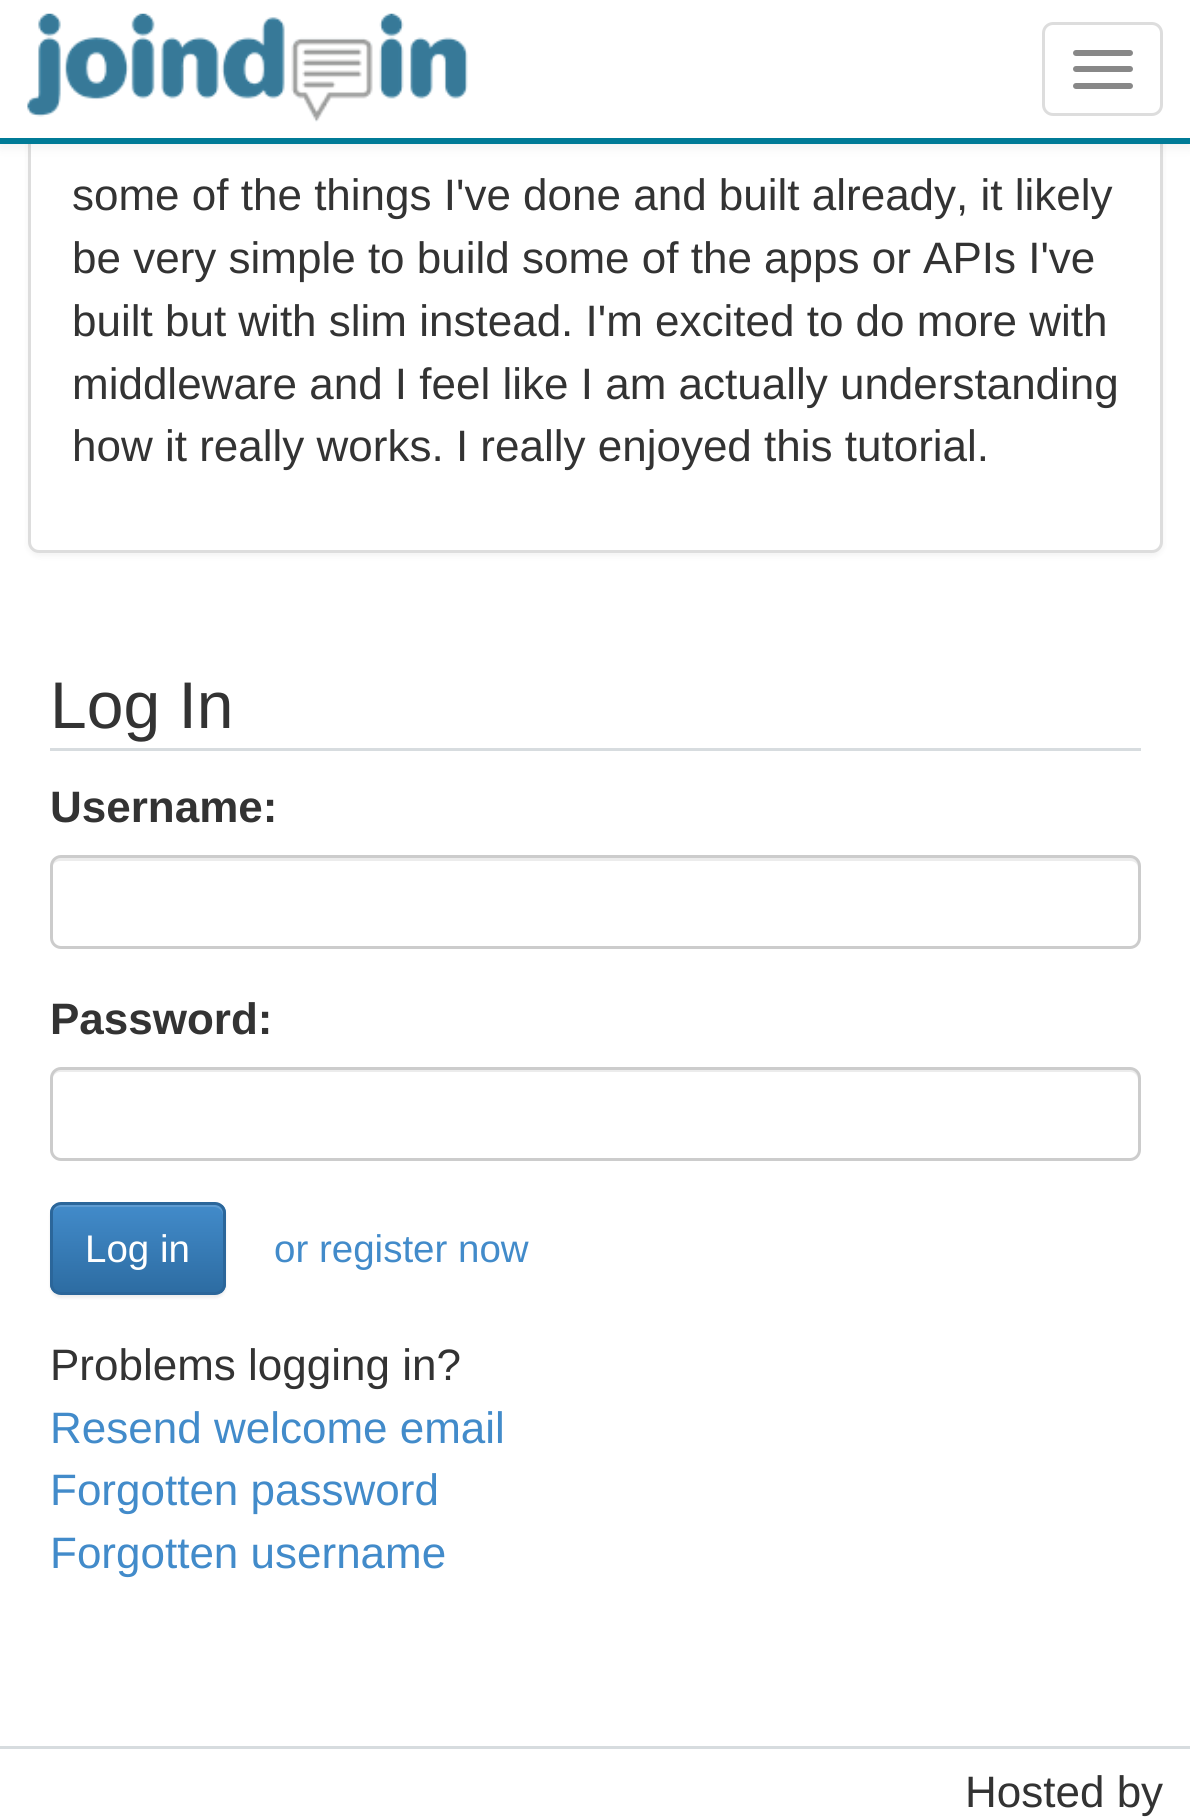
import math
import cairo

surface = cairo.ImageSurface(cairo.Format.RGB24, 1190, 1820)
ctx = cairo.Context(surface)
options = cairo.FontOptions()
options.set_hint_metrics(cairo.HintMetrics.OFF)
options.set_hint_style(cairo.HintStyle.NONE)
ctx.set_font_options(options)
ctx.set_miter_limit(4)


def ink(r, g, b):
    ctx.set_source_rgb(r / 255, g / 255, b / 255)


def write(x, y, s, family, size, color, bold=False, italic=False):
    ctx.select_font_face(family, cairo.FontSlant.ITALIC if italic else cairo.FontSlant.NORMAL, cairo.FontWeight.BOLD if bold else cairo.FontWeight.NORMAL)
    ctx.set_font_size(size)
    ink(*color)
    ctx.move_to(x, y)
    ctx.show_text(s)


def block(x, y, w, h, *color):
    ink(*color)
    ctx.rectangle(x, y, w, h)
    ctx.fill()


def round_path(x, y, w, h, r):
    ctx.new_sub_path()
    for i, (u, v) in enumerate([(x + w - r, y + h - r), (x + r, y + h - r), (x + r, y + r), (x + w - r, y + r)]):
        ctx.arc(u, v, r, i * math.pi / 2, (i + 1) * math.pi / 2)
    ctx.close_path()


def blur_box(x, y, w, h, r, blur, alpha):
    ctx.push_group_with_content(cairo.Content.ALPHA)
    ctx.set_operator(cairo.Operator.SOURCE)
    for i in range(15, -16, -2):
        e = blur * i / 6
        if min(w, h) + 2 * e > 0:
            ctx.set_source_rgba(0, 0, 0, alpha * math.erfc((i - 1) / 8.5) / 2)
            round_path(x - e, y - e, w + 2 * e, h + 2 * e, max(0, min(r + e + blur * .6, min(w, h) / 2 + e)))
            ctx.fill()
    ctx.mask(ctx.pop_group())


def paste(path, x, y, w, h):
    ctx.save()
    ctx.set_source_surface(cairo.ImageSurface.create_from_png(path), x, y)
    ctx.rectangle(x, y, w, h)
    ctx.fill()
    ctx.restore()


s1 = dict(family="Liberation Sans", size=44, color=(51, 51, 51))
s2 = dict(family="Liberation Sans", size=66, color=(51, 51, 51))
s3 = dict(family="Liberation Sans", size=44, color=(51, 51, 51), bold=True)
s4 = dict(family="Liberation Sans", size=38.5, color=(255, 255, 255))
s5 = dict(family="Liberation Sans", size=38.5, color=(66, 139, 202))
s6 = dict(family="Liberation Sans", size=44, color=(66, 139, 202))

ink(255, 255, 255)
ctx.paint()
ink(0, 0, 0)
blur_box(28, -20, 1135, 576, 11, 3, 0.05)
ink(255, 255, 255)
round_path(29.5, -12.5, 1132, 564, 9.5)
ctx.fill_preserve()
ink(221, 221, 221)
ctx.set_line_width(3)
ctx.stroke()
ink(0, 0, 0)
blur_box(0, 3, 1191, 143, 0, 7, 0.07)
block(0, 0, 1190, 138, 255, 255, 255)
block(0, 138, 1190, 6, 0, 123, 151)
paste("pic1.png", 27, 13, 441, 109)
round_path(1043.5, 23.5, 118, 91, 9.5)
ink(221, 221, 221)
ctx.stroke()
ink(136, 136, 136)
round_path(1073, 50, 60, 6, 3)
ctx.fill()
round_path(1073, 66, 60, 6, 3)
ctx.fill()
round_path(1073, 83, 60, 6, 3)
ctx.fill()
write(72, 210, "some of the things I've done and built already, it likely", **s1)
write(72, 273, "be very simple to build some of the apps or APIs I've", **s1)
write(72, 336, "built but with slim instead. I'm excited to do more with", **s1)
write(72, 399, "middleware and I feel like I am actually understanding", **s1)
write(72, 461, "how it really works. I really enjoyed this tutorial.", **s1)
block(50, 748, 1091, 3, 215, 220, 223)
write(50, 728, "Log In", **s2)
write(50, 822, "Username:", **s3)
ink(236, 236, 236)
ctx.new_path()
ctx.move_to(60, 861)
ctx.line_to(1130, 861)
ctx.curve_to(1135, 861, 1138, 864, 1138, 869)
ctx.line_to(1138, 942)
ctx.curve_to(1139, 941, 1139, 940, 1139, 938)
ctx.line_to(1139, 866)
ctx.curve_to(1139, 862, 1135, 858, 1131, 858)
ctx.line_to(60, 858)
ctx.curve_to(56, 858, 52, 862, 52, 866)
ctx.line_to(52, 869)
ctx.curve_to(52, 864, 56, 861, 60, 861)
ctx.close_path()
ctx.fill()
round_path(51.5, 856.5, 1088, 91, 9.5)
ink(204, 204, 204)
ctx.stroke()
write(50, 1034, "Password:", **s3)
ink(236, 236, 236)
ctx.new_path()
ctx.move_to(60, 1072)
ctx.line_to(1130, 1072)
ctx.curve_to(1135, 1072, 1138, 1076, 1138, 1081)
ctx.line_to(1138, 1154)
ctx.curve_to(1139, 1153, 1139, 1152, 1139, 1150)
ctx.line_to(1139, 1078)
ctx.curve_to(1139, 1074, 1135, 1070, 1131, 1070)
ctx.line_to(60, 1070)
ctx.curve_to(56, 1070, 52, 1074, 52, 1078)
ctx.line_to(52, 1081)
ctx.curve_to(52, 1076, 56, 1072, 60, 1072)
ctx.close_path()
ctx.fill()
round_path(51.5, 1068.5, 1088, 91, 9.5)
ink(204, 204, 204)
ctx.stroke()
ink(0, 0, 0)
blur_box(50, 1205, 176, 93, 11, 1.5, 0.07)
ctx.save()
round_path(50, 1202, 176, 93, 11)
ctx.clip()
gradient = cairo.LinearGradient(138, 1205, 138, 1293)
gradient.add_color_stop_rgba(0, 0.259, 0.545, 0.792, 1)
gradient.add_color_stop_rgba(1, 0.176, 0.424, 0.635, 1)
ctx.set_source(gradient)
ctx.rectangle(50, 1205, 176, 88)
ctx.fill()
ctx.restore()
ctx.set_source_rgba(1, 1, 1, 0.15)
ctx.new_path()
ctx.move_to(60, 1207)
ctx.line_to(214, 1207)
ctx.curve_to(219, 1207, 223, 1211, 223, 1216)
ctx.line_to(223, 1213)
ctx.curve_to(223, 1209, 219, 1205, 215, 1205)
ctx.line_to(60, 1205)
ctx.curve_to(56, 1205, 52, 1209, 52, 1213)
ctx.line_to(52, 1216)
ctx.curve_to(52, 1211, 56, 1207, 60, 1207)
ctx.close_path()
ctx.fill()
round_path(51.5, 1203.5, 173, 90, 9.5)
ink(43, 102, 154)
ctx.stroke()
write(85, 1262, "Log in", **s4)
write(274, 1262, "or register now", **s5)
write(50, 1380, "Problems logging in?", **s1)
write(50, 1443, "Resend welcome email", **s6)
write(50, 1505, "Forgotten password", **s6)
write(50, 1568, "Forgotten username", **s6)
block(0, 1746, 1190, 3, 215, 220, 223)
write(965, 1807, "Hosted by", **s1)
surface.write_to_png("screenshot.png")
